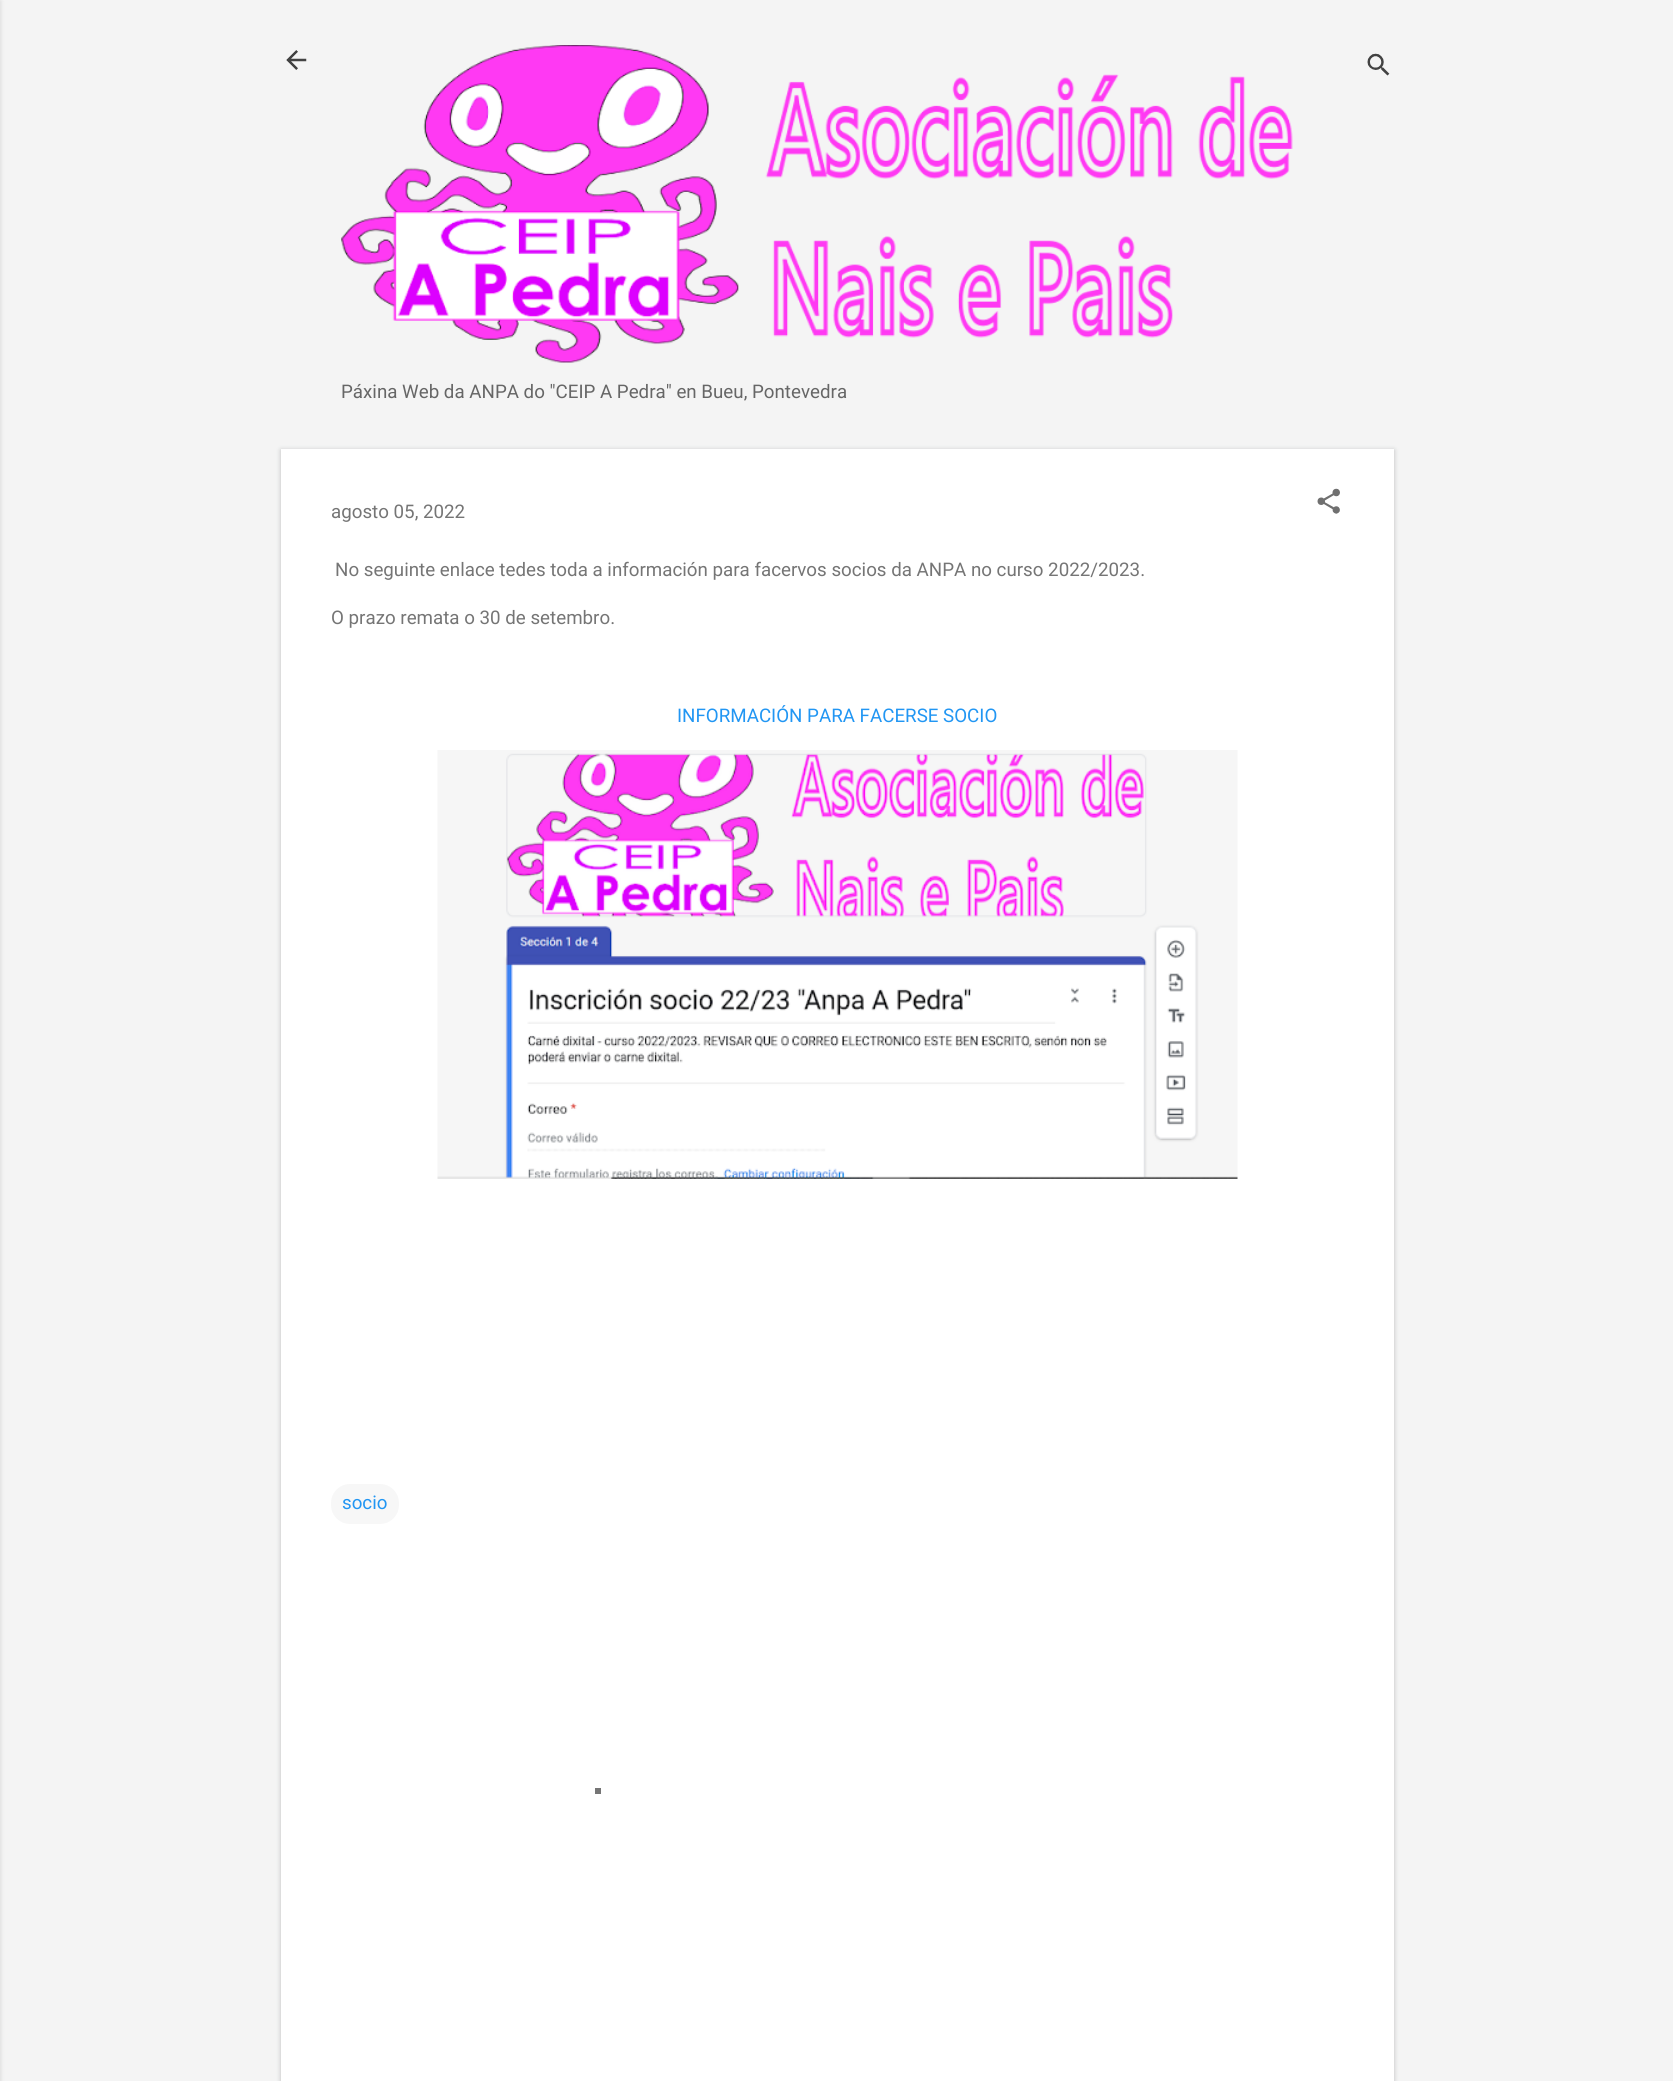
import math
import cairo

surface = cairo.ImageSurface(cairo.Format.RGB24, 1673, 2081)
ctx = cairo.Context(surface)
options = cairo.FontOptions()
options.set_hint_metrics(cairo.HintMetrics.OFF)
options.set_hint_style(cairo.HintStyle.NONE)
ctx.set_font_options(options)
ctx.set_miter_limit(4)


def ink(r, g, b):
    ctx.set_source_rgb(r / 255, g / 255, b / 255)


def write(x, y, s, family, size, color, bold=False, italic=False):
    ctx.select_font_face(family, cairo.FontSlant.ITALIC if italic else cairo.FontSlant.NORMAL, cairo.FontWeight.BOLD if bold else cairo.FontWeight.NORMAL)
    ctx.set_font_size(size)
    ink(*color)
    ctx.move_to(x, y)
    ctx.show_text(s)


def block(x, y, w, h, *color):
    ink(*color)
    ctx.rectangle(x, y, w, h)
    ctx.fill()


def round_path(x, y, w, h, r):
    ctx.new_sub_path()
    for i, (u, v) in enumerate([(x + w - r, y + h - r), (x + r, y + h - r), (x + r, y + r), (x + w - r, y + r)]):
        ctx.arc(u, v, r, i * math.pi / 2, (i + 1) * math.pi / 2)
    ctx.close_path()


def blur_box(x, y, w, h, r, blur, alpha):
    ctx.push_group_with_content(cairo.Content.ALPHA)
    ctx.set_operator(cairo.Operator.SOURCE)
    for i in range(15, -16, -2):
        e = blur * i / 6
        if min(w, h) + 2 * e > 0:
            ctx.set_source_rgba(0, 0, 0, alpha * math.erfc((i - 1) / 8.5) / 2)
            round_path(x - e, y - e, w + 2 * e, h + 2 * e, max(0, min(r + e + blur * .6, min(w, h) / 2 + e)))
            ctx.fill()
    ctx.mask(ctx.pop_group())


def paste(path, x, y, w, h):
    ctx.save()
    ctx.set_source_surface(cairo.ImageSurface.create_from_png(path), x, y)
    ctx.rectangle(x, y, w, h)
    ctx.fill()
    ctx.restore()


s1 = dict(family="Roboto", size=18.75, color=(102, 102, 102))
s2 = dict(family="Roboto", size=18.75, color=(117, 117, 117))
s3 = dict(family="Roboto", size=18.75, color=(33, 150, 243))

ink(244, 244, 244)
ctx.paint()
ink(0, 0, 0)
blur_box(-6, 1, 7, 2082, 0, 2, 0.1)
paste("pic1.png", 286, 50, 21, 20)
paste("pic2.png", 1367, 53, 23, 23)
paste("pic3.png", 341, 45, 952, 318)
write(341, 398, "Páxina Web da ANPA do \"CEIP A Pedra\" en Bueu, Pontevedra", **s1)
ink(60, 64, 67)
blur_box(281, 450, 1113, 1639, 0, 2.5, 0.3)
block(281, 449, 1113, 1632, 255, 255, 255)
write(331, 518, "agosto 05, 2022", **s2)
paste("pic4.png", 1317, 488, 23, 26)
write(335, 576, "No seguinte enlace tedes toda a información para facervos socios da ANPA no curso 2022/2023.", **s2)
write(331, 624, "O prazo remata o 30 de setembro.", **s2)
write(677, 722, "INFORMACIÓN PARA FACERSE SOCIO", **s3)
paste("pic5.png", 437, 750, 801, 429)
ink(247, 247, 247)
round_path(331, 1484, 68, 40, 19)
ctx.fill()
write(342, 1509, "socio", **s3)
block(595, 1788, 6, 6, 117, 117, 117)
surface.write_to_png("screenshot.png")
